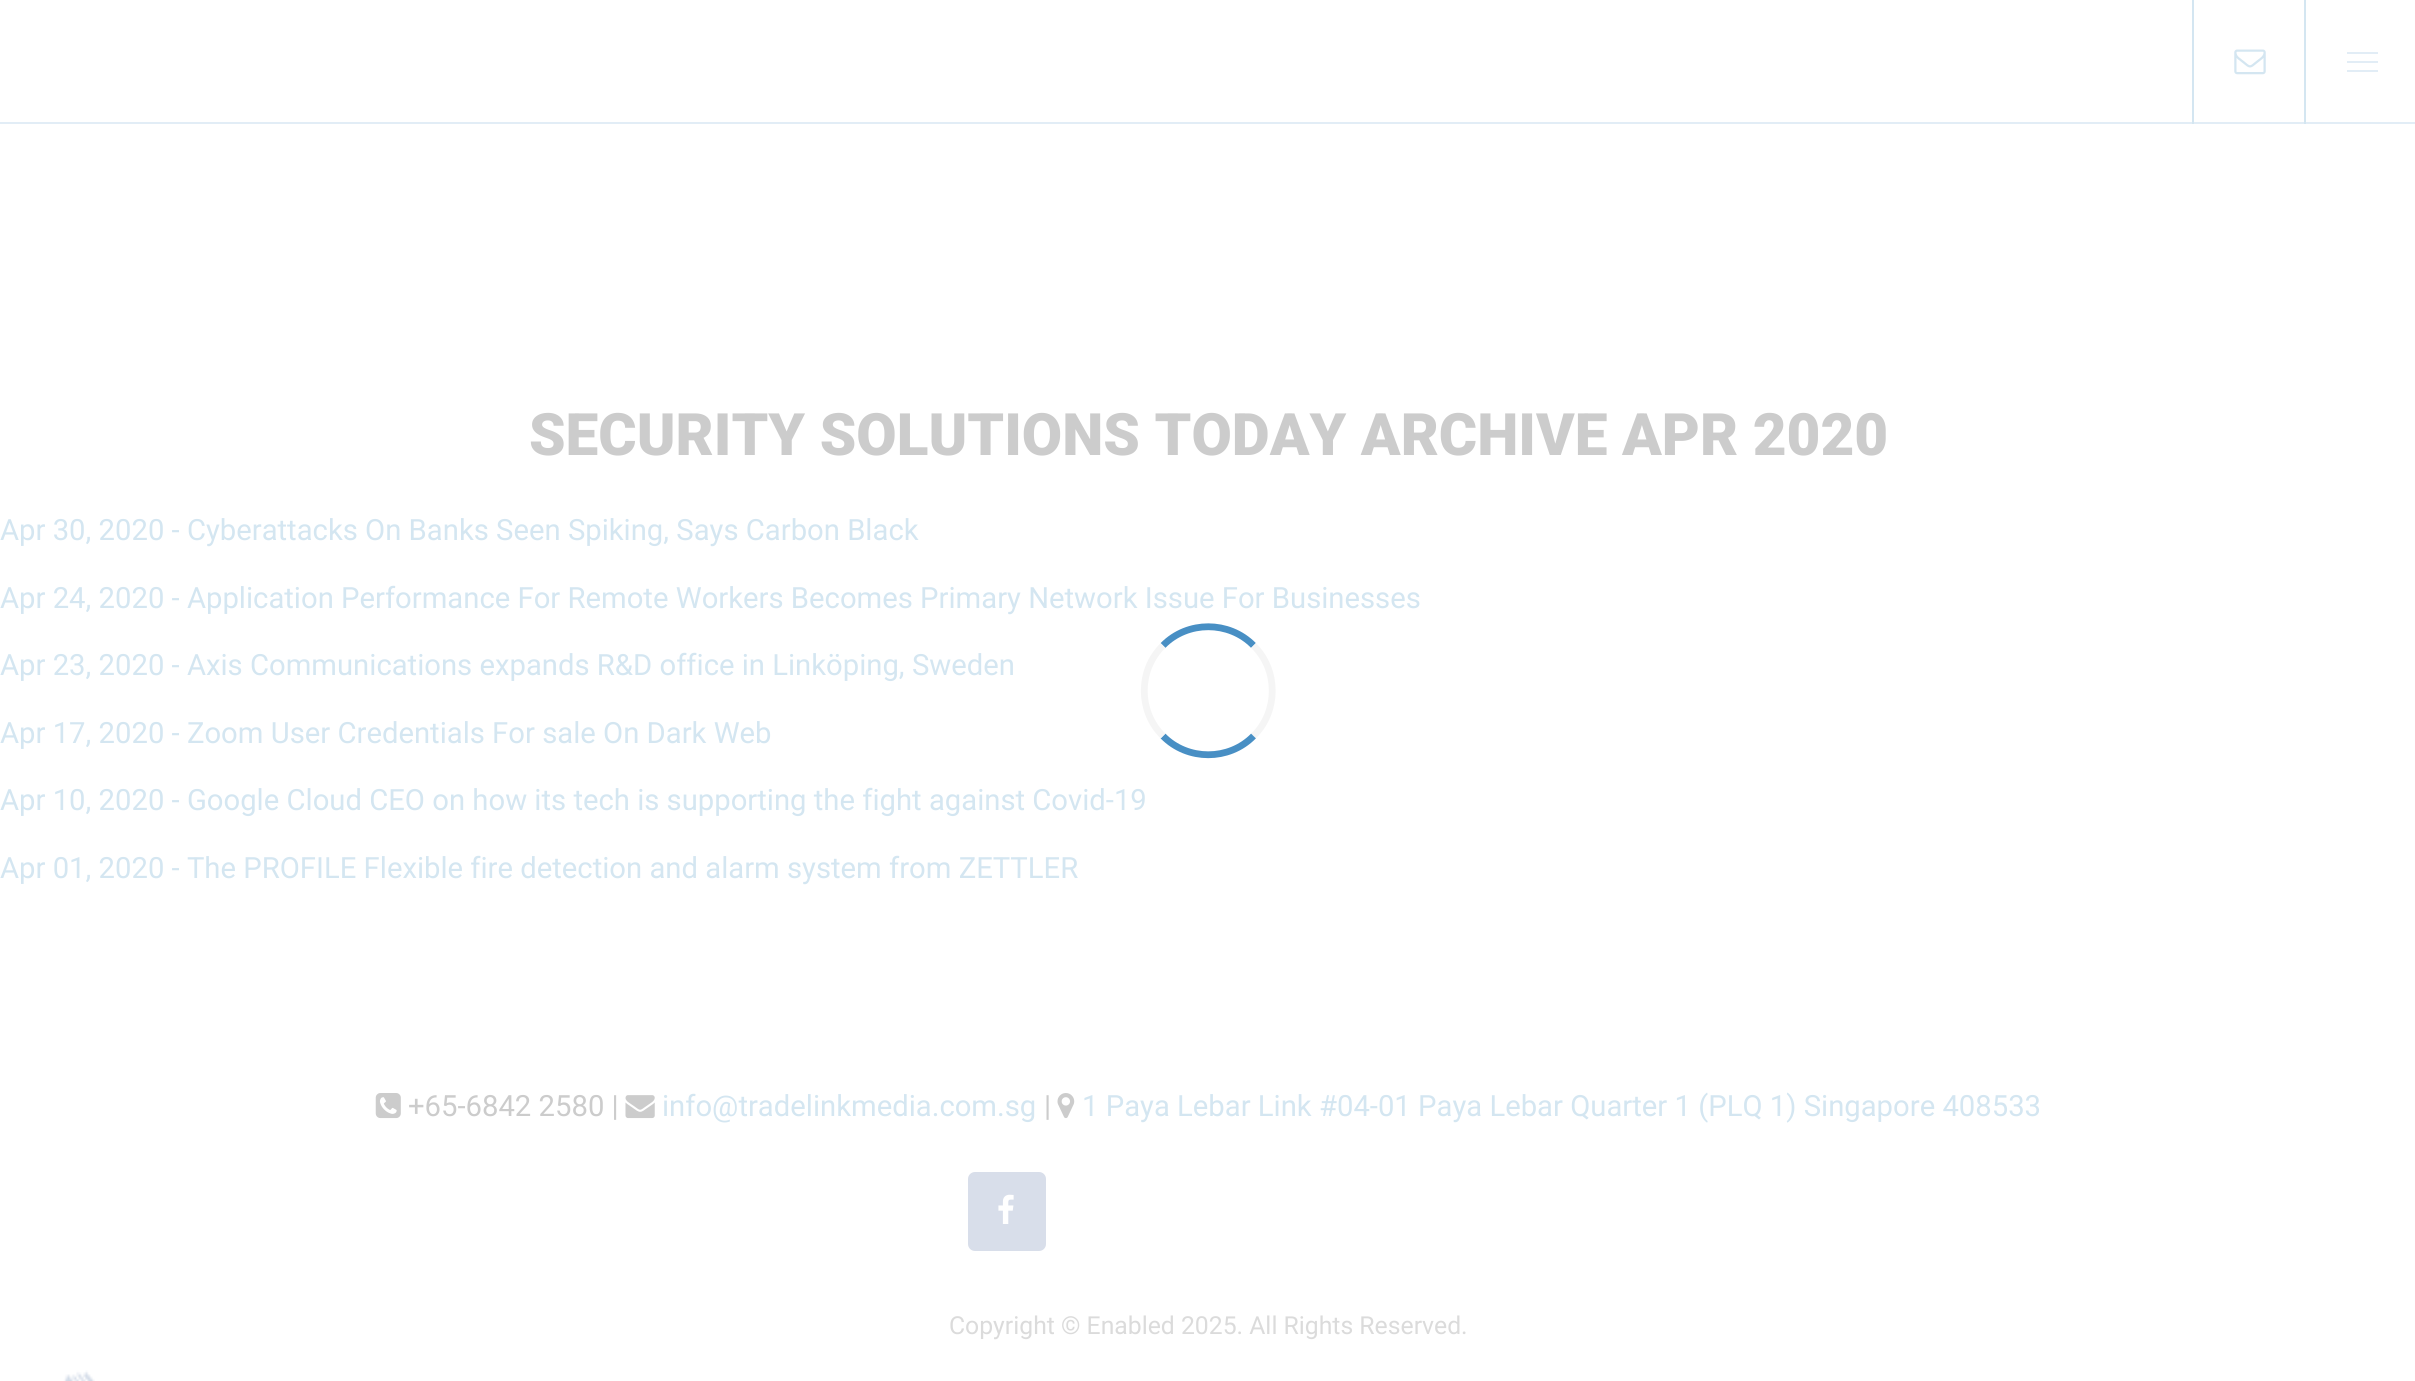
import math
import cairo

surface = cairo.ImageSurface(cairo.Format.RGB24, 2415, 1381)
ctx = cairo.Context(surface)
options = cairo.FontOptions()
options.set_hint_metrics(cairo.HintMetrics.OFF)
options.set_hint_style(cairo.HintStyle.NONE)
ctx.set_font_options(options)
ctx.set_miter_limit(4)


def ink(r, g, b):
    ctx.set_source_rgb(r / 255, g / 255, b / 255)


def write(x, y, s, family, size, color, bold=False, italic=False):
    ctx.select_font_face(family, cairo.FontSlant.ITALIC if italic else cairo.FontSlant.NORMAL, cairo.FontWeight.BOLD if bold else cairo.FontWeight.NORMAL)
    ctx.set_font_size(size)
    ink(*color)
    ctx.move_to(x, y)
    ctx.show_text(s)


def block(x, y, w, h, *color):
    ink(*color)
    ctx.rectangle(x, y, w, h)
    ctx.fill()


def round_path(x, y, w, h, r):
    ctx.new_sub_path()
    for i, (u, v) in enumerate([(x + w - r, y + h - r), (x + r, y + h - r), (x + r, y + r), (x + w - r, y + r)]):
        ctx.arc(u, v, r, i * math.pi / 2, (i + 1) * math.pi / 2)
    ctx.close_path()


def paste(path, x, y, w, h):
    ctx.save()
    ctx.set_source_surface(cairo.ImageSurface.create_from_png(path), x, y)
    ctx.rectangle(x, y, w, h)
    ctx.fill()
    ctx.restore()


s1 = dict(family="Roboto Black", size=58.5, color=(204, 204, 204))
s2 = dict(family="Roboto", size=29.25, color=(212, 230, 241))
s3 = dict(family="Roboto", size=29.25, color=(204, 204, 204))
s4 = dict(family="Roboto", size=24.75, color=(219, 219, 219))

ink(255, 255, 255)
ctx.paint()
block(0, 122, 2415, 2, 226, 237, 246)
block(2192, 0, 2, 124, 212, 230, 241)
paste("pic1.png", 2234, 49, 32, 26)
block(2304, 0, 2, 124, 212, 230, 241)
block(2347, 52, 31, 2, 226, 237, 246)
block(2347, 61, 31, 2, 226, 237, 246)
block(2347, 70, 31, 2, 226, 237, 246)
write(529, 455, "SECURITY SOLUTIONS TODAY ARCHIVE APR 2020", **s1)
write(0, 540, "Apr 30, 2020 - Cyberattacks On Banks Seen Spiking, Says Carbon Black", **s2)
write(0, 608, "Apr 24, 2020 - Application Performance For Remote Workers Becomes Primary Network Issue For Businesses", **s2)
write(0, 675, "Apr 23, 2020 - Axis Communications expands R&D office in Linköping, Sweden", **s2)
write(0, 743, "Apr 17, 2020 - Zoom User Credentials For sale On Dark Web", **s2)
write(0, 810, "Apr 10, 2020 - Google Cloud CEO on how its tech is supporting the fight against Covid-19", **s2)
write(0, 878, "Apr 01, 2020 - The PROFILE Flexible fire detection and alarm system from ZETTLER", **s2)
paste("pic2.png", 375, 1093, 26, 26)
write(408, 1116, "+65-6842 2580 |", **s3)
paste("pic3.png", 625, 1095, 30, 24)
write(662, 1116, "info@tradelinkmedia.com.sg", **s2)
write(1044, 1116, "|", **s3)
paste("pic4.png", 1057, 1093, 18, 26)
write(1082, 1116, "1 Paya Lebar Link #04-01 Paya Lebar Quarter 1 (PLQ 1) Singapore 408533", **s2)
ink(216, 222, 234)
round_path(968, 1172, 78, 79, 7)
ctx.fill()
paste("pic5.png", 998, 1194, 16, 30)
write(949, 1334, "Copyright © Enabled 2025. All Rights Reserved.", **s4)
paste("pic6.png", 63, 1370, 32, 11)
ctx.new_path()
ctx.move_to(1163, 645.5)
ctx.curve_to(1187.5, 620.5, 1229, 620.5, 1253.5, 645.5)
ink(72, 143, 196)
ctx.set_line_width(6.8)
ctx.stroke()
ctx.new_path()
ctx.move_to(1253.5, 645.5)
ctx.curve_to(1278.5, 670, 1278.5, 711.5, 1253.5, 736)
ink(245, 245, 245)
ctx.stroke()
ctx.new_path()
ctx.move_to(1253.5, 736)
ctx.curve_to(1229, 761, 1187.5, 761, 1163, 736)
ink(72, 143, 196)
ctx.stroke()
ctx.new_path()
ctx.move_to(1163, 736)
ctx.curve_to(1138, 711.5, 1138, 670, 1163, 645.5)
ink(245, 245, 245)
ctx.stroke()
surface.write_to_png("screenshot.png")
